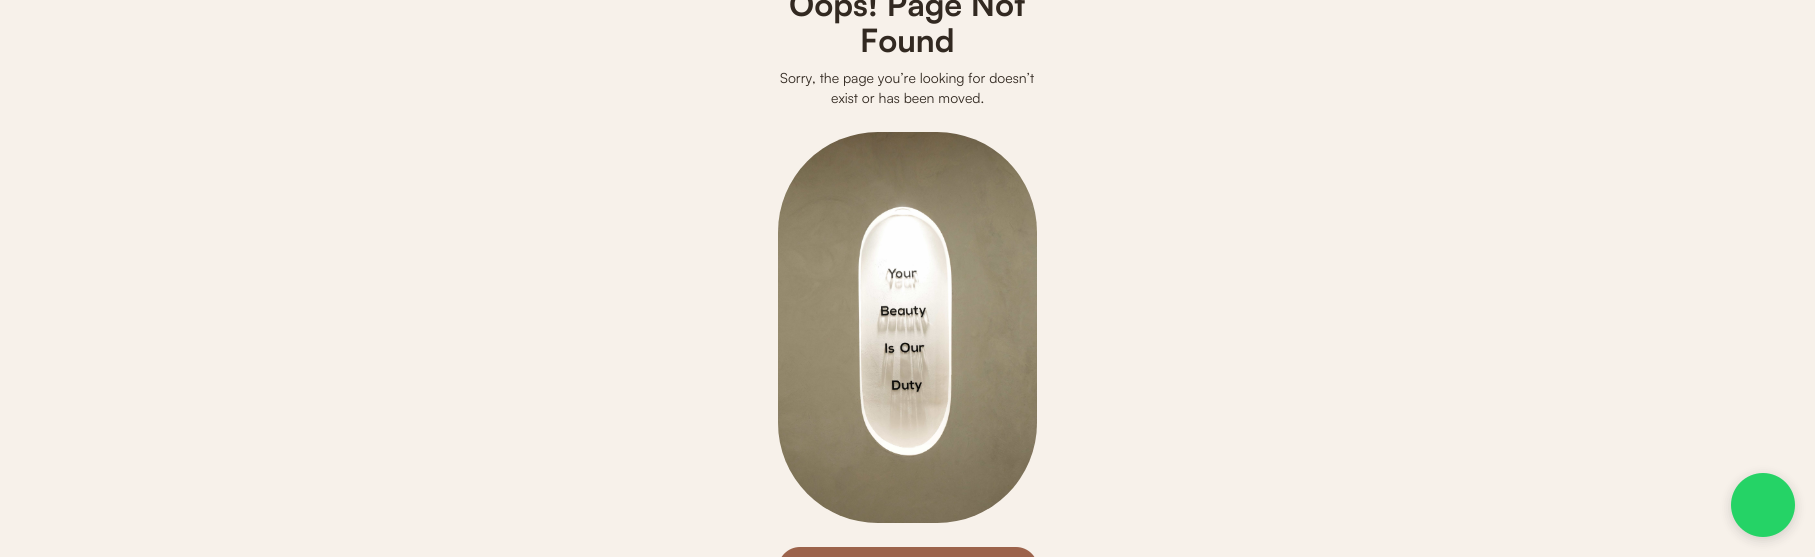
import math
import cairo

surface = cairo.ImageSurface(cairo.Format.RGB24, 1815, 557)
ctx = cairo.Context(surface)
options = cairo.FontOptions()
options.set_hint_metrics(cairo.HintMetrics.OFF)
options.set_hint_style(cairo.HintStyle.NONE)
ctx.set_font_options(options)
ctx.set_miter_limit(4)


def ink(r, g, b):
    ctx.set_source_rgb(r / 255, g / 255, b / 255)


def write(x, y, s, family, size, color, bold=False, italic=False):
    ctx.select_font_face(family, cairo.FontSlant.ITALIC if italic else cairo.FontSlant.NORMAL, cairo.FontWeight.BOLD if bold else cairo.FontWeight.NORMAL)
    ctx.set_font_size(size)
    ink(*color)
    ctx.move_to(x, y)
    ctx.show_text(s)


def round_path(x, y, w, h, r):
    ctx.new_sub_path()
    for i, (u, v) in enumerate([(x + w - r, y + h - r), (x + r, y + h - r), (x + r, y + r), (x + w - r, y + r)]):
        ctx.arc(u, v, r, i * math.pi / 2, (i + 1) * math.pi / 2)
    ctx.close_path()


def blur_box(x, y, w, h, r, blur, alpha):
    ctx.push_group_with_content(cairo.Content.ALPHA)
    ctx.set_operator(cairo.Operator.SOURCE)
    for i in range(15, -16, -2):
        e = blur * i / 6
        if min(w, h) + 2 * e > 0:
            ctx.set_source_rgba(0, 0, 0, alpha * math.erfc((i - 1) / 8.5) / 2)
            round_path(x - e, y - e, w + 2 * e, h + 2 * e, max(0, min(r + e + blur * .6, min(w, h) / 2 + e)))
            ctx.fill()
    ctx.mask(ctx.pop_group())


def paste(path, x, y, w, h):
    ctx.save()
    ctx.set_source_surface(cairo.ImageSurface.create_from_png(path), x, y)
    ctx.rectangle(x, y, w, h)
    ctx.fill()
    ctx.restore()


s1 = dict(family="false", size=32, color=(50, 41, 33), bold=True)
s2 = dict(family="false", size=14, color=(50, 41, 33))

ink(247, 241, 234)
ctx.paint()
write(789, 16, "Oops! Page Not", **s1)
write(860, 52, "Found", **s1)
write(780, 83, "Sorry, the page you’re looking for doesn’t", **s2)
write(831, 103, "exist or has been moved.", **s2)
paste("pic1.png", 778, 132, 259, 391)
ink(156, 99, 75)
round_path(778, 547, 260, 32, 22)
ctx.fill()
ink(0, 0, 0)
blur_box(1731, 476, 64, 64, 32, 6, 0.15)
ink(37, 211, 102)
ctx.arc(1763, 505, 32, 0, 2 * math.pi)
ctx.fill()
surface.write_to_png("screenshot.png")
